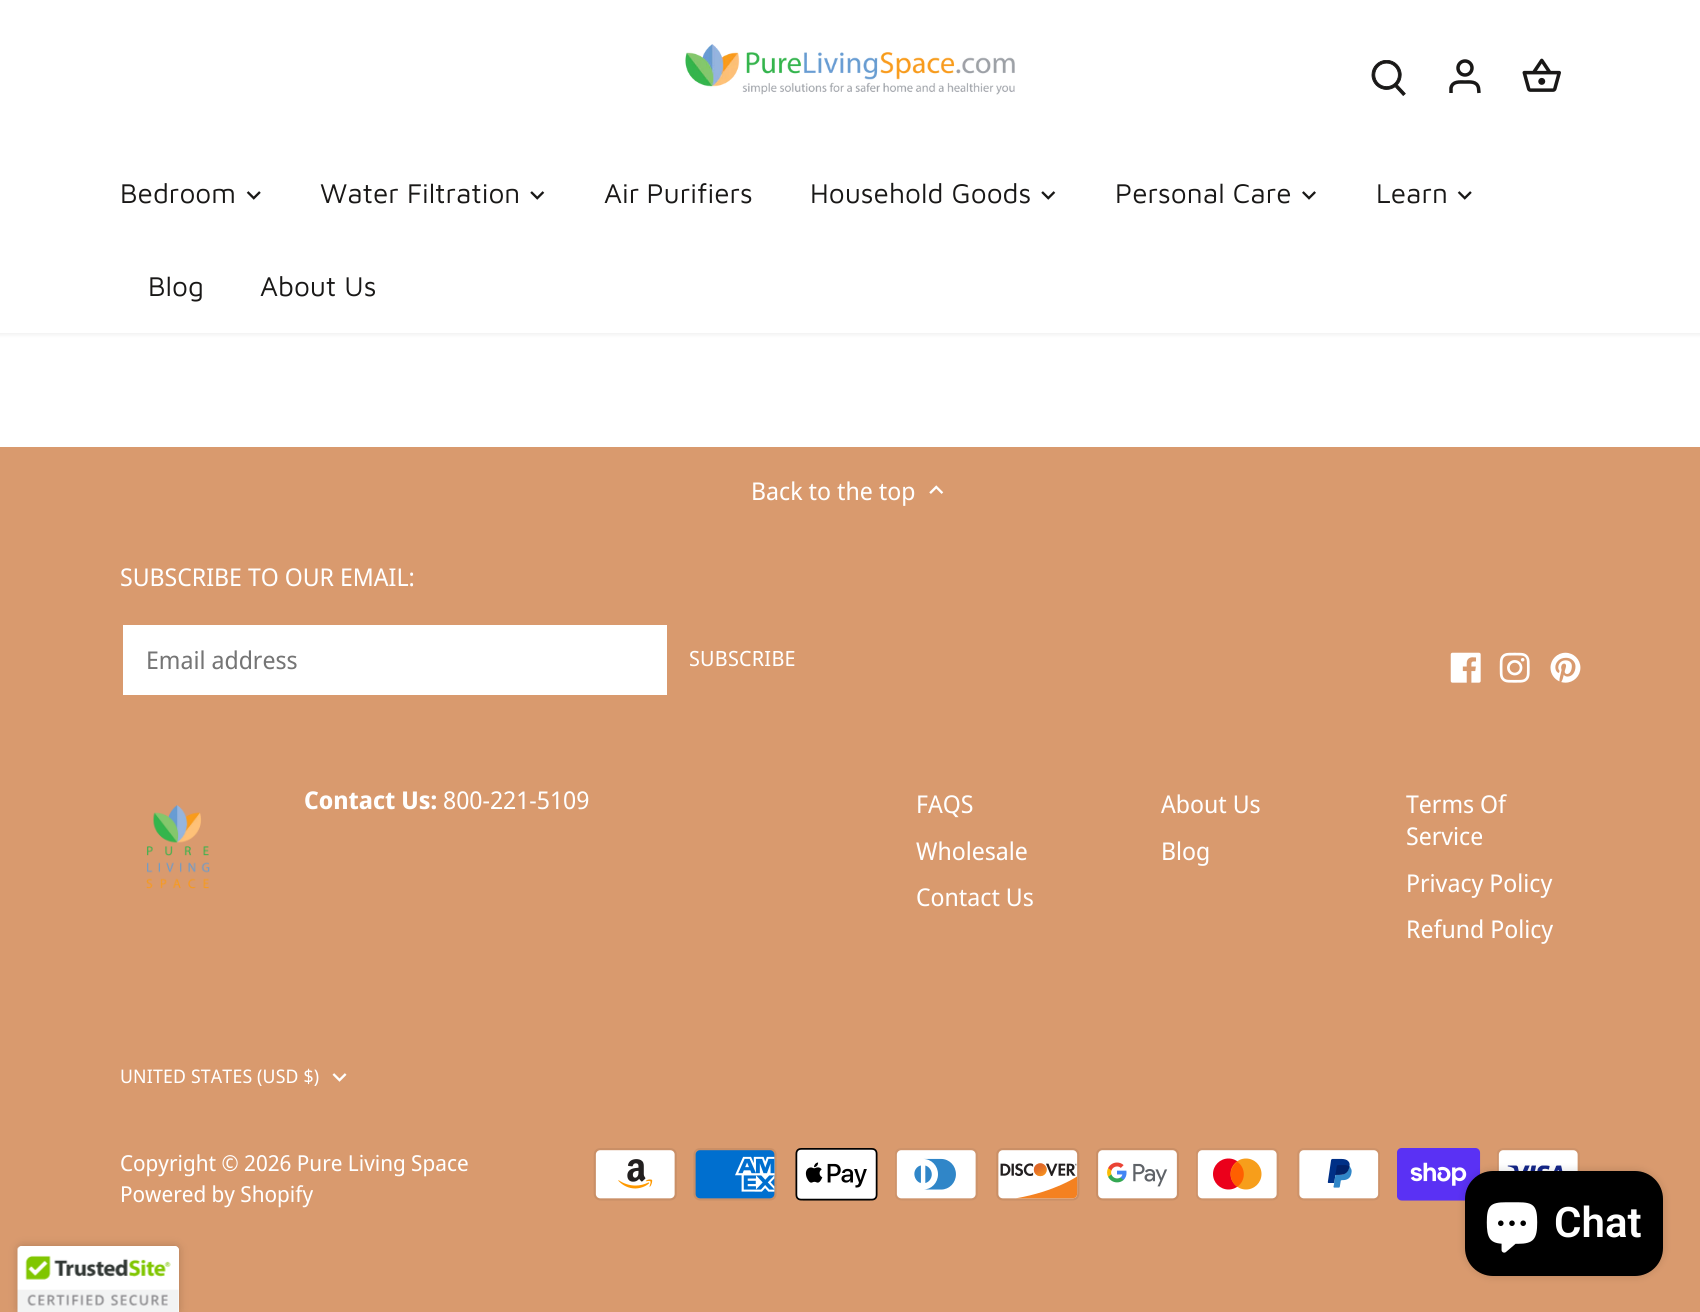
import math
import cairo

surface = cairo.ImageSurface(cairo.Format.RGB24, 1700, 1312)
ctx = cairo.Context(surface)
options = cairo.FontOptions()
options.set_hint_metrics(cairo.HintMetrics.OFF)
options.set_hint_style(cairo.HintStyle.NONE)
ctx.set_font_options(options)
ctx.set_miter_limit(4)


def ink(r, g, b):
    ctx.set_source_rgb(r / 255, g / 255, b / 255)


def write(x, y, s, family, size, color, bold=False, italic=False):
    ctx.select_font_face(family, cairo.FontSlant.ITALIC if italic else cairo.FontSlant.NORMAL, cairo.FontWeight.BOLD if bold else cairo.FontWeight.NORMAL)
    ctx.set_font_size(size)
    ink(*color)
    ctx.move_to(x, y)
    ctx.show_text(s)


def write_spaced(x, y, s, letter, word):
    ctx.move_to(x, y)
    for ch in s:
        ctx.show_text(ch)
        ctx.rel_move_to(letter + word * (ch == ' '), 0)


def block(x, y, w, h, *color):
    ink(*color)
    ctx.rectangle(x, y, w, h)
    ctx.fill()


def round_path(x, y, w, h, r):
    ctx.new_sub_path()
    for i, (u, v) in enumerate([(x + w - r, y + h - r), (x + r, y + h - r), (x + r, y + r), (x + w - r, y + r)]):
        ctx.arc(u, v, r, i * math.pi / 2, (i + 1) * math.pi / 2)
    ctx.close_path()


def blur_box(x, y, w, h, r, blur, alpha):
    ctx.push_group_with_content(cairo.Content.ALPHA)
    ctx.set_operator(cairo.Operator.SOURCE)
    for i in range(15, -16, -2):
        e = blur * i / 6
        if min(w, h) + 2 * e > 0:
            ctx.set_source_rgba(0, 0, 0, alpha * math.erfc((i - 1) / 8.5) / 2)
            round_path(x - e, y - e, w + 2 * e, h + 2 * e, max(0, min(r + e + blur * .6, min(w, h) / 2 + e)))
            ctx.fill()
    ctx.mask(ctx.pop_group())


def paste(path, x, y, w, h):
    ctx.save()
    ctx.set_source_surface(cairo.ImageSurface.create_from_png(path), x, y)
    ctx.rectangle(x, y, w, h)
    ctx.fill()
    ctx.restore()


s1 = dict(family="Maven Pro", size=28, color=(25, 24, 23))
s2 = dict(family="Noto Sans Display", size=24.5, color=(255, 255, 255))
s3 = dict(family="Noto Sans Display", size=24.5, color=(117, 117, 117))
s4 = dict(family="Noto Sans Display", size=24.5, color=(255, 255, 255), bold=True)
s5 = dict(family="Noto Sans Display", size=22, color=(255, 255, 255))
s6 = dict(family="Roboto SemiBold", size=42, color=(255, 255, 255))

ink(217, 154, 110)
ctx.paint()
block(0, 333, 1700, 114, 255, 255, 255)
ink(0, 0, 0)
blur_box(-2, -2, 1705, 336, 0, 2.5, 0.08)
block(0, 0, 1700, 333, 255, 255, 255)
paste("pic1.png", 685, 44, 330, 51)
paste("pic2.png", 1371, 60, 35, 36)
ctx.arc(1465, 68, 7, 0, 2 * math.pi)
ink(25, 24, 23)
ctx.set_line_width(3.5)
ctx.stroke()
ctx.new_path()
ctx.move_to(1479, 93)
ctx.line_to(1478.5, 88)
ctx.curve_to(1477, 81, 1470, 82, 1465, 82)
ctx.curve_to(1459.5, 82, 1452.5, 81, 1451, 88)
ctx.line_to(1451, 93)
ctx.stroke()
paste("pic3.png", 1522, 58, 39, 34)
write(120, 203, "Bedroom", **s1)
paste("pic4.png", 246, 191, 15, 9)
write(320, 203, "Water Filtration", **s1)
paste("pic5.png", 530, 191, 15, 9)
write_spaced(604, 203, "Air Purifiers", 0, -1)
write(810, 203, "Household Goods", **s1)
paste("pic5.png", 1041, 191, 15, 9)
write(1115, 203, "Personal Care", **s1)
paste("pic6.png", 1302, 191, 14, 9)
write(1376, 203, "Learn", **s1)
paste("pic4.png", 1457, 191, 15, 9)
write(148, 296, "Blog", **s1)
write(260, 296, "About Us", **s1)
write(751, 500, "Back to the top", **s2)
paste("pic7.png", 929, 485, 15, 9)
write(120, 586, "SUBSCRIBE TO OUR EMAIL:", **s2)
block(123, 625, 544, 70, 255, 255, 255)
write(146, 669, "Email address", **s3)
ctx.set_font_size(21)
ink(255, 255, 255)
write_spaced(689, 666, "SUBSCRIBE", 0.25, 0)
paste("pic8.png", 1450, 652, 31, 31)
paste("pic9.png", 1499, 652, 31, 31)
paste("pic10.png", 1550, 652, 31, 31)
paste("pic11.png", 146, 805, 64, 84)
write(304, 809, "Contact Us:", **s4)
write(443, 809, "800-221-5109", **s2)
write(916, 813, "FAQS", **s2)
write(916, 860, "Wholesale", **s2)
write(916, 906, "Contact Us", **s2)
write(1161, 813, "About Us", **s2)
write(1161, 860, "Blog", **s2)
write(1406, 813, "Terms Of", **s2)
write(1406, 845, "Service", **s2)
write(1406, 892, "Privacy Policy", **s2)
write(1406, 938, "Refund Policy", **s2)
ctx.set_font_size(18.75)
write_spaced(120, 1083, "UNITED STATES (USD $)", 0.2, 0)
paste("pic12.png", 332, 1073, 15, 9)
write(120, 1171, "Copyright © 2026 Pure Living Space", **s5)
write(120, 1202, "Powered by Shopify", **s5)
paste("pic13.png", 593, 1148, 84, 53)
paste("pic14.png", 693, 1148, 84, 53)
paste("pic15.png", 795, 1148, 83, 53)
paste("pic16.png", 895, 1148, 83, 53)
paste("pic17.png", 996, 1148, 84, 53)
paste("pic18.png", 1096, 1148, 83, 53)
paste("pic19.png", 1196, 1148, 83, 53)
paste("pic20.png", 1297, 1148, 83, 53)
paste("pic21.png", 1397, 1148, 84, 53)
paste("pic22.png", 1497, 1148, 83, 23)
ink(0, 0, 0)
blur_box(1465, 1171, 198, 105, 28, 4.5, 0.15)
ink(0, 0, 0)
round_path(1465, 1171, 198, 105, 28)
ctx.fill()
paste("pic23.png", 1486, 1202, 52, 51)
write(1554, 1237, "Chat", **s6)
ink(0, 0, 0)
blur_box(18, 1246, 161, 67, 4, 4.5, 0.2)
ink(255, 255, 255)
ctx.new_path()
ctx.move_to(22, 1246)
ctx.line_to(175, 1246)
ctx.curve_to(177, 1246, 179, 1248, 179, 1250)
ctx.line_to(179, 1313)
ctx.line_to(18, 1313)
ctx.line_to(18, 1250)
ctx.curve_to(18, 1248, 20, 1246, 22, 1246)
ctx.close_path()
ctx.fill()
paste("pic24.png", 17, 1246, 162, 66)
surface.write_to_png("screenshot.png")
